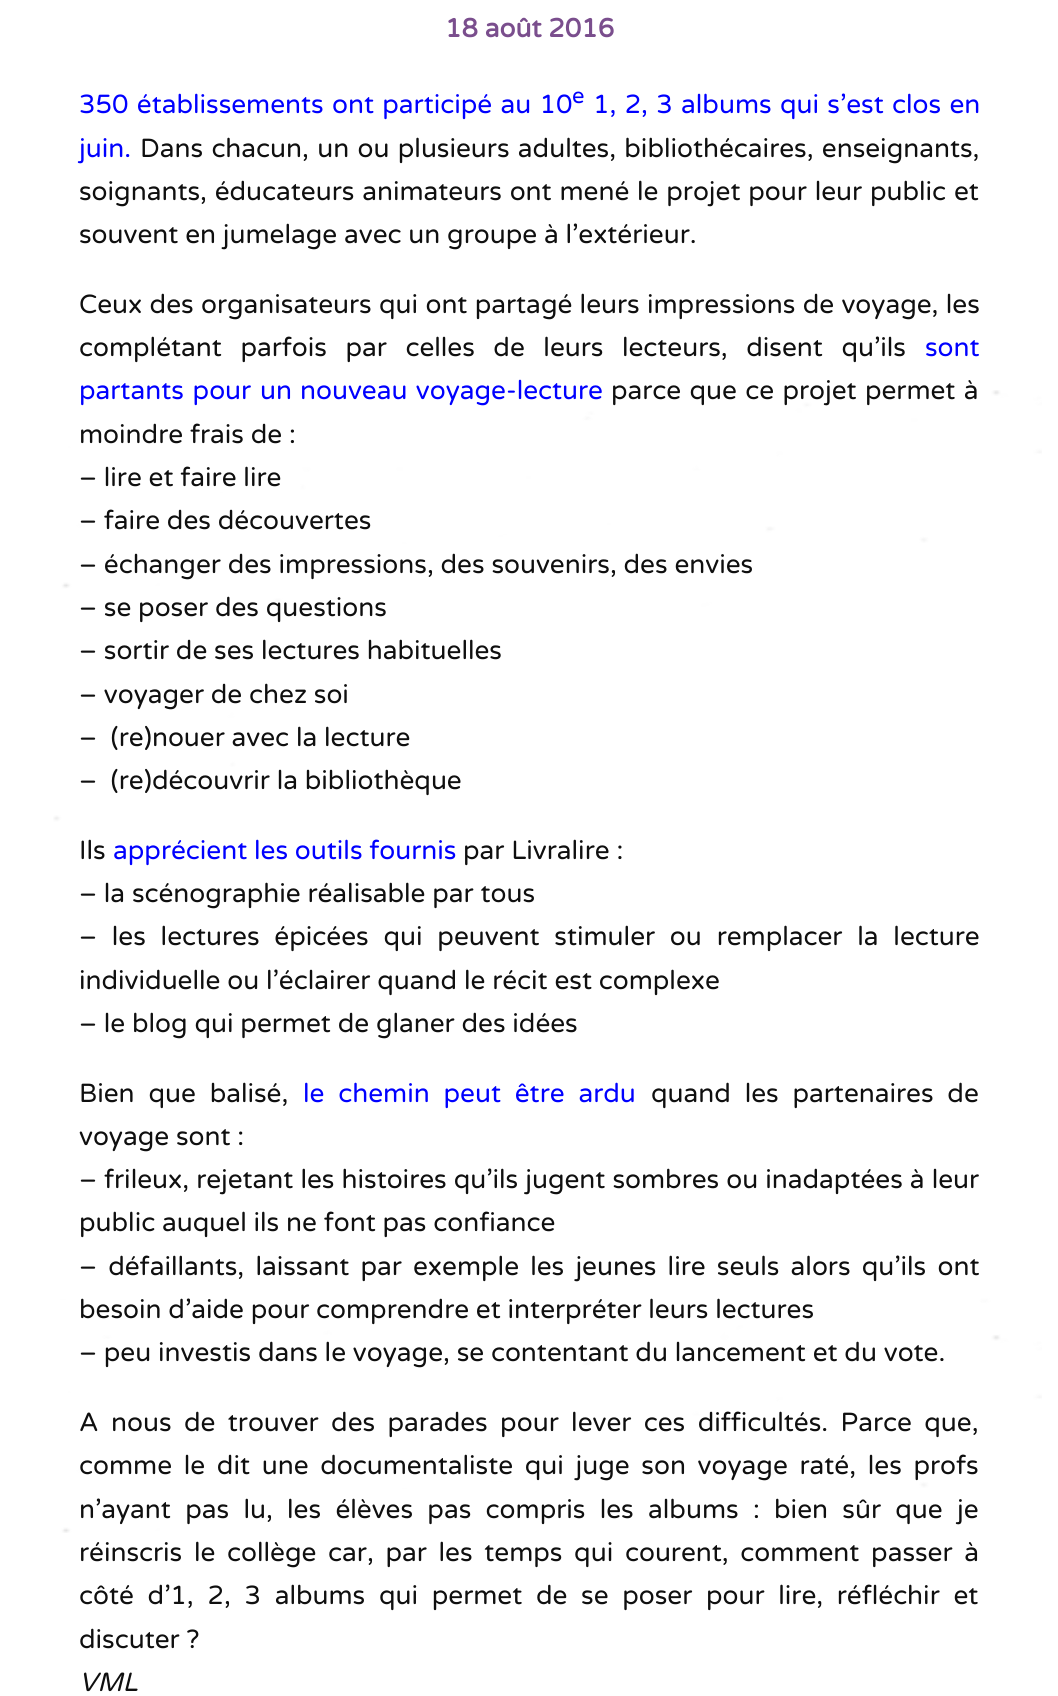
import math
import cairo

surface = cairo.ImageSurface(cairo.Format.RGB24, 1058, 1696)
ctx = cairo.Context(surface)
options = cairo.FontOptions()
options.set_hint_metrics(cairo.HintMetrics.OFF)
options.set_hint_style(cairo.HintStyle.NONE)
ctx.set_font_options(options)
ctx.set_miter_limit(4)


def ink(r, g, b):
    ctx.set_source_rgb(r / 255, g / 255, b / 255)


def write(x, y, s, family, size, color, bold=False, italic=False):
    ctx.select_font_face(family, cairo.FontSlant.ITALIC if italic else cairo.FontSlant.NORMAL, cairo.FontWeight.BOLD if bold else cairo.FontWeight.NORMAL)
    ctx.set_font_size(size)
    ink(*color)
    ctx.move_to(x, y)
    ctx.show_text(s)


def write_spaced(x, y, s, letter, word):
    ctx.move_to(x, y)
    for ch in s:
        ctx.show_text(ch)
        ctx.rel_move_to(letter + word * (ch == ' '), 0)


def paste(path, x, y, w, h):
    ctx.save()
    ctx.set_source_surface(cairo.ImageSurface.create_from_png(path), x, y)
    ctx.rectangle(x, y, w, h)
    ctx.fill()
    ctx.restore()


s1 = dict(family="Varela Round", size=26.25, color=(122, 78, 141), bold=True)
s2 = dict(family="Varela Round", size=22, color=(0, 0, 255))
s3 = dict(family="Varela Round", size=26.25, color=(0, 0, 255))
s4 = dict(family="Varela Round", size=26.25, color=(15, 15, 15))
s5 = dict(family="Varela Round", size=26.25, color=(15, 15, 15), italic=True)

ink(255, 255, 255)
ctx.paint()
paste("pic1.png", 53, 390, 989, 1143)
write(445, 37, "18 août 2016", **s1)
ctx.select_font_face("Varela Round")
ink(0, 0, 255)
write_spaced(79, 113, "350 établissements ont participé au 10", 0, 1.5)
write(572, 103, "e", **s2)
ctx.set_font_size(26.25)
write_spaced(593, 113, "1, 2, 3 albums qui s’est clos en", 0, 1.5)
write(79, 157, "juin.", **s3)
ink(15, 15, 15)
write_spaced(140, 157, "Dans chacun, un ou plusieurs adultes, bibliothécaires, enseignants,", 0, 1.5)
write_spaced(79, 200, "soignants, éducateurs animateurs ont mené le projet pour leur public et", 0, 1)
write(79, 243, "souvent en jumelage avec un groupe à l’extérieur.", **s4)
write_spaced(79, 313, "Ceux des organisateurs qui ont partagé leurs impressions de voyage, les", 0, 0.5)
write_spaced(79, 356, "complétant parfois par celles de leurs lecteurs, disent qu’ils", 0, 11.75)
write(925, 356, "sont", **s3)
write_spaced(79, 399, "partants pour un", 0, 2)
write_spaced(300, 399, "nouveau voyage-lecture", 0, 1.5)
ink(15, 15, 15)
write_spaced(611, 399, "parce que ce projet permet à", 0, 1.5)
write(79, 443, "moindre frais de :", **s4)
write(79, 486, "– lire et faire lire", **s4)
write(79, 529, "– faire des découvertes", **s4)
write(79, 573, "– échanger des impressions, des souvenirs, des envies", **s4)
write(79, 616, "– se poser des questions", **s4)
write(79, 659, "– sortir de ses lectures habituelles", **s4)
write(79, 703, "– voyager de chez soi", **s4)
write(79, 746, "–  (re)nouer avec la lecture", **s4)
write(79, 789, "–  (re)découvrir la bibliothèque", **s4)
write(79, 859, "Ils", **s4)
write(113, 859, "apprécient les outils fournis", **s3)
write(463, 859, "par Livralire :", **s4)
write(79, 902, "– la scénographie réalisable par tous", **s4)
write_spaced(79, 945, "– les lectures épicées qui peuvent stimuler ou remplacer la lecture", 0, 8)
write(79, 989, "individuelle ou l’éclairer quand le récit est complexe", **s4)
write(79, 1032, "– le blog qui permet de glaner des idées", **s4)
write_spaced(79, 1102, "Bien que balisé,", 0, 7)
ink(0, 0, 255)
write_spaced(303, 1102, "le chemin peut être ardu", 0, 7)
ink(15, 15, 15)
write_spaced(651, 1102, "quand les partenaires de", 0, 7)
write(79, 1145, "voyage sont :", **s4)
write_spaced(79, 1188, "– frileux, rejetant les histoires qu’ils jugent sombres ou inadaptées à leur", 0, 0.25)
write(79, 1231, "public auquel ils ne font pas confiance", **s4)
write_spaced(79, 1275, "– défaillants, laissant par exemple les jeunes lire seuls alors qu’ils ont", 0, 4.4)
write(79, 1318, "besoin d’aide pour comprendre et interpréter leurs lectures", **s4)
write(79, 1361, "– peu investis dans le voyage, se contentant du lancement et du vote.", **s4)
write_spaced(79, 1431, "A nous de trouver des parades pour lever ces difficultés. Parce que,", 0, 5.6)
write_spaced(79, 1474, "comme le dit une documentaliste qui juge son voyage raté, les profs", 0, 4.9)
write_spaced(79, 1518, "n’ayant pas lu, les élèves pas compris les albums : bien sûr que je", 0, 7.5)
write_spaced(79, 1561, "réinscris le collège car, par les temps qui courent, comment passer à", 0, 4.9)
write_spaced(79, 1604, "côté d’1, 2, 3 albums qui permet de se poser pour lire, réfléchir et", 0, 6.9)
write(79, 1648, "discuter ?", **s4)
write(79, 1691, "VML", **s5)
surface.write_to_png("screenshot.png")
